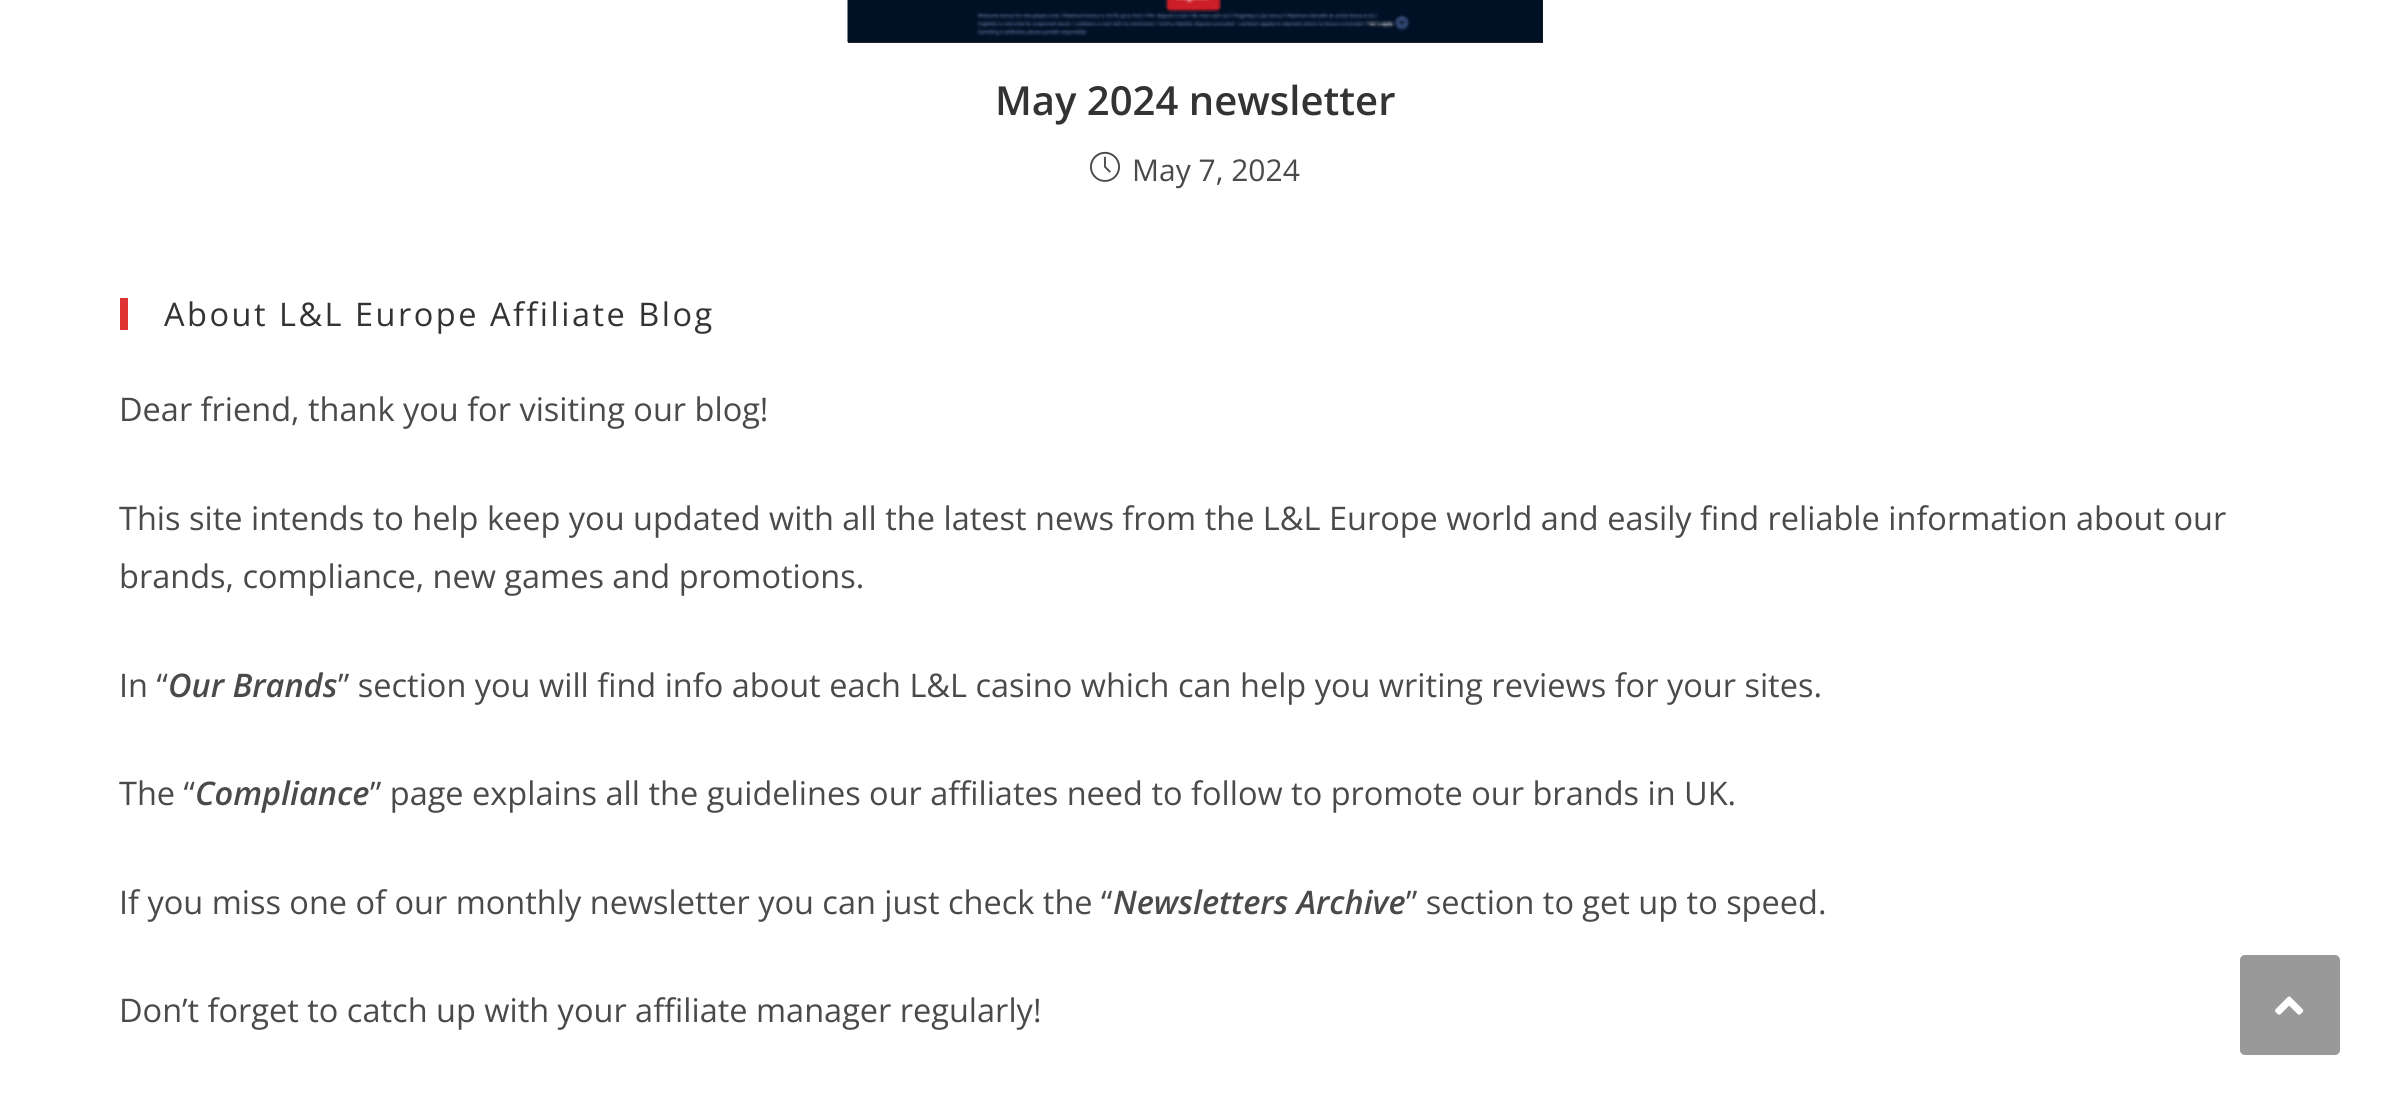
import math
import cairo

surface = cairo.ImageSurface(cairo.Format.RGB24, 2390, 1104)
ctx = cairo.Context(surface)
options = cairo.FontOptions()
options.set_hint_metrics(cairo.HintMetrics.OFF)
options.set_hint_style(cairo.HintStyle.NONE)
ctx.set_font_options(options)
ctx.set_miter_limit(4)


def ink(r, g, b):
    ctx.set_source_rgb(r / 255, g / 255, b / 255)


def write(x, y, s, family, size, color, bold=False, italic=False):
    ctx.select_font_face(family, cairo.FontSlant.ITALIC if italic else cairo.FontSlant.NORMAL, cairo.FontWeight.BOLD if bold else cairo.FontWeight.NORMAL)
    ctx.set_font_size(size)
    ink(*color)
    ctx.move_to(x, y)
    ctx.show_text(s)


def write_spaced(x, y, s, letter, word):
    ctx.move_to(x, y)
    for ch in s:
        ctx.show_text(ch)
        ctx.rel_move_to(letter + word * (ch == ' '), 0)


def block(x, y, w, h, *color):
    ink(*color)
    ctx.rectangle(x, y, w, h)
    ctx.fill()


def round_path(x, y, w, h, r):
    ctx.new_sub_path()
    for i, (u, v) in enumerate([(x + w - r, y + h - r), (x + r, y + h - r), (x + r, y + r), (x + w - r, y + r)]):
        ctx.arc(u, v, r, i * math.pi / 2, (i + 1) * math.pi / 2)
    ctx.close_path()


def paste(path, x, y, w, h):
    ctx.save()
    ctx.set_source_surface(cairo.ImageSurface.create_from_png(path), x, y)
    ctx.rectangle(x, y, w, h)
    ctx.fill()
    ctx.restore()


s1 = dict(family="Open Sans SemiBold", size=40, color=(51, 51, 51))
s2 = dict(family="Open Sans", size=30, color=(74, 74, 74))
s3 = dict(family="Open Sans", size=32.5, color=(74, 74, 74))
s4 = dict(family="Open Sans SemiBold", size=32.5, color=(74, 74, 74), italic=True)

ink(255, 255, 255)
ctx.paint()
block(848, 0, 695, 43, 34, 34, 34)
paste("pic1.png", 847, 0, 696, 42)
write(995, 115, "May 2024 newsletter", **s1)
paste("pic2.png", 1090, 151, 30, 31)
write(1132, 181, "May 7, 2024", **s2)
block(120, 298, 8, 32, 221, 51, 51)
ctx.set_font_size(32.5)
ink(51, 51, 51)
write_spaced(164, 326, "About L&L Europe Affiliate Blog", 2.5, 0)
write(119, 421, "Dear friend, thank you for visiting our blog!", **s3)
write(119, 530, "This site intends to help keep you updated with all the latest news from the L&L Europe world and easily find reliable information about our", **s3)
write(119, 588, "brands, compliance, new games and promotions.", **s3)
write(119, 697, "In “", **s3)
write(168, 697, "Our Brands", **s4)
write(338, 697, "” section you will find info about each L&L casino which can help you writing reviews for your sites.", **s3)
write(119, 805, "The “", **s3)
write(195, 805, "Compliance", **s4)
write(370, 805, "” page explains all the guidelines our affiliates need to follow to promote our brands in UK.", **s3)
write(119, 914, "If you miss one of our monthly newsletter you can just check the “", **s3)
write(1113, 914, "Newsletters Archive", **s4)
write(1406, 914, "” section to get up to speed.", **s3)
write(119, 1022, "Don’t forget to catch up with your affiliate manager regularly!", **s3)
ink(153, 153, 153)
round_path(2240, 955, 100, 100, 5)
ctx.fill()
paste("pic3.png", 2275, 996, 29, 19)
surface.write_to_png("screenshot.png")
